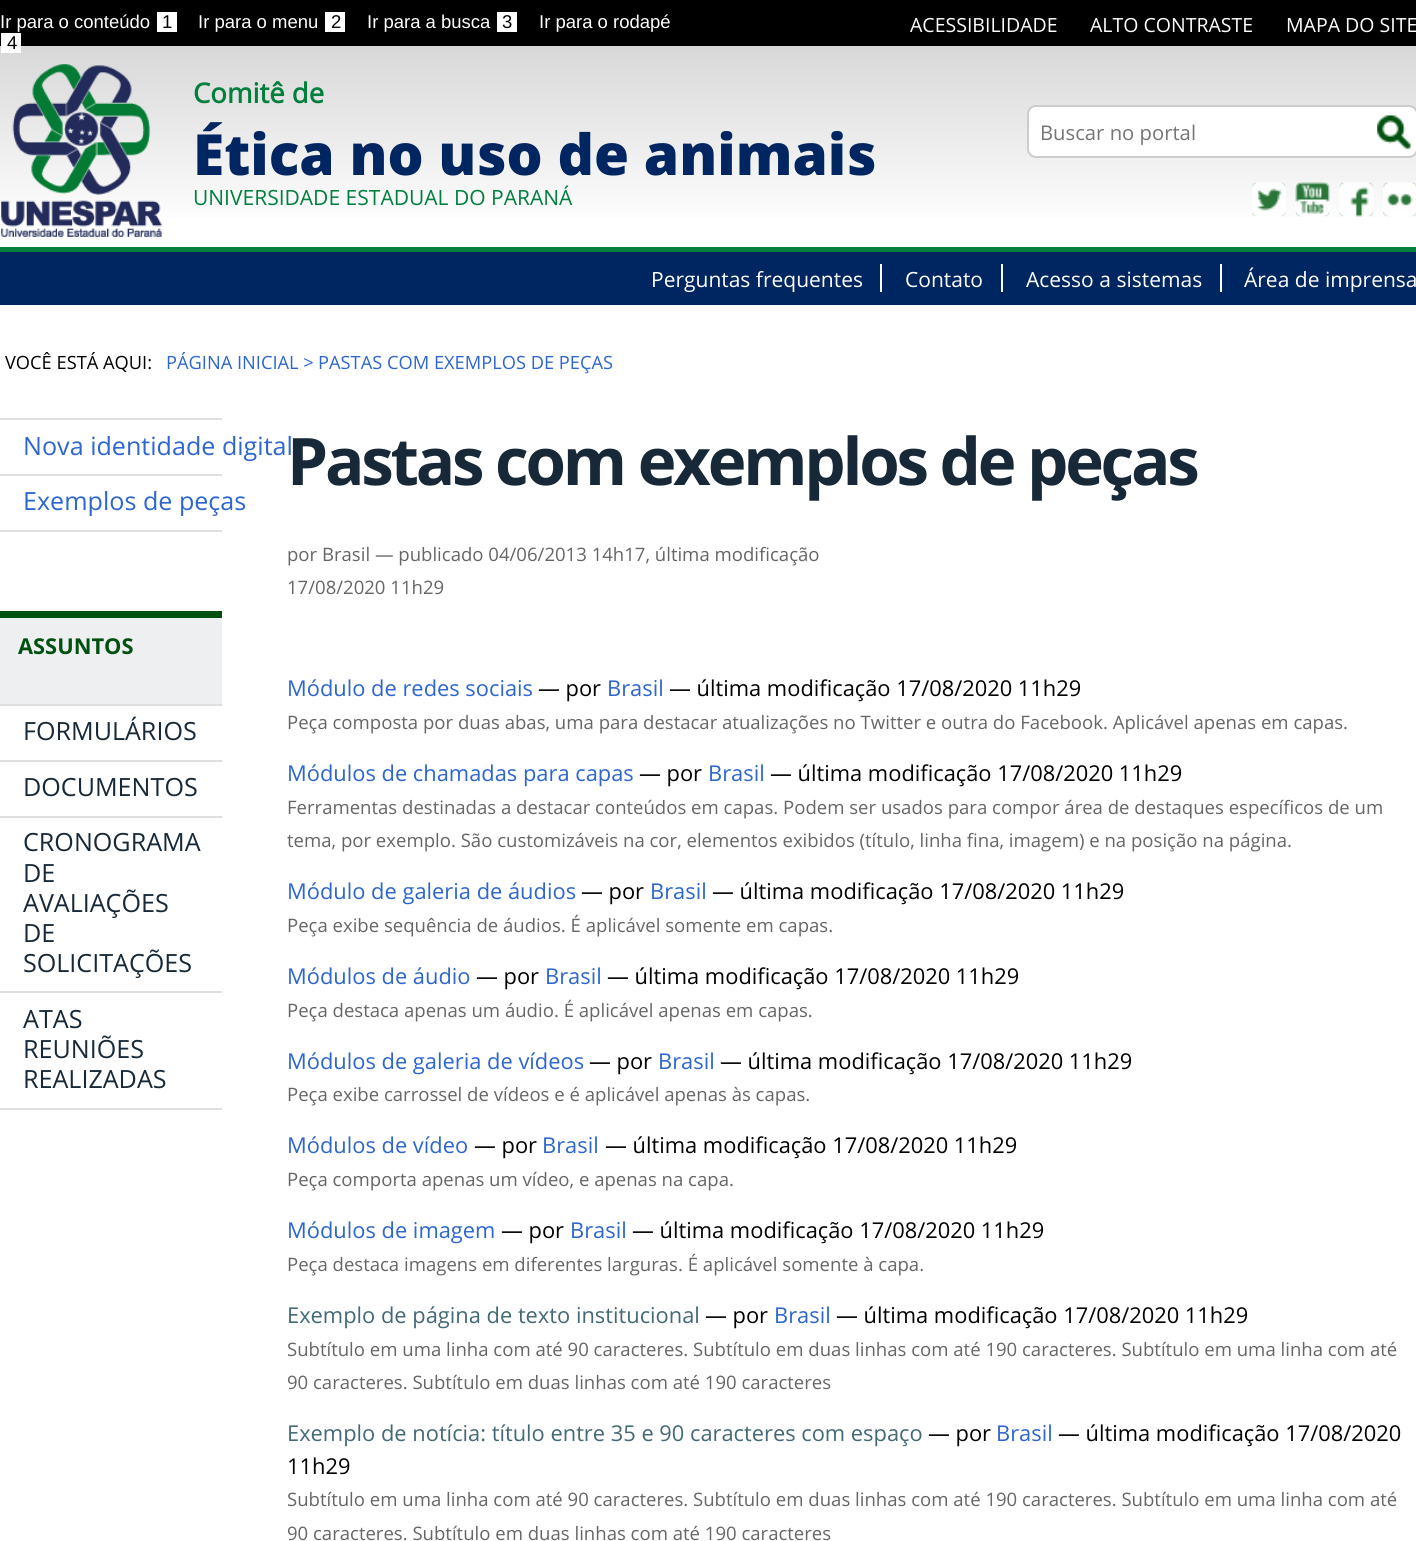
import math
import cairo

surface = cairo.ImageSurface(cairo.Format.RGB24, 1416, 1541)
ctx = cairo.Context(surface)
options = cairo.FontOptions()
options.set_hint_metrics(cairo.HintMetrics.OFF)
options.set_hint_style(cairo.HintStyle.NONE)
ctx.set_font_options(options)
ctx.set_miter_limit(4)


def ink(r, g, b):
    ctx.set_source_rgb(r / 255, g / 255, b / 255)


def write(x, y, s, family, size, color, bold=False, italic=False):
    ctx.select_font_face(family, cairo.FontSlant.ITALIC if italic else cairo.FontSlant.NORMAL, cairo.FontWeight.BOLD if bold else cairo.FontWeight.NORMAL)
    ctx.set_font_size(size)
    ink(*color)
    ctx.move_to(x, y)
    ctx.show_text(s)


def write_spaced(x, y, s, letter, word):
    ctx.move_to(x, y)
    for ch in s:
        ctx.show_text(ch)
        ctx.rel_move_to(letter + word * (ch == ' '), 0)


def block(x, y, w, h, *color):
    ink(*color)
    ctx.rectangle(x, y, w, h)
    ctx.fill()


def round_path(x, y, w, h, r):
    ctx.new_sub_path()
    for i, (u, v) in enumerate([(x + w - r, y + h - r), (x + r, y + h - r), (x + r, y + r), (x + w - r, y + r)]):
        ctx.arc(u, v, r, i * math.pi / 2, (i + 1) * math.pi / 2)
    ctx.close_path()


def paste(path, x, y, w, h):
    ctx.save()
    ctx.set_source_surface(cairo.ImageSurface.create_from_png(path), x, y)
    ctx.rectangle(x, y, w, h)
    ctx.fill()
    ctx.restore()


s1 = dict(family="Liberation Sans", size=18.5, color=(255, 255, 255))
s2 = dict(family="Liberation Sans", size=18.5, color=(0, 0, 0))
s3 = dict(family="Open Sans", size=19.5, color=(255, 255, 255))
s4 = dict(family="Open Sans", size=27.5, color=(0, 127, 61), bold=True)
s5 = dict(family="Open Sans ExtraBold", size=56.75, color=(0, 38, 97))
s6 = dict(family="Open Sans", size=21, color=(0, 127, 61))
s7 = dict(family="Open Sans", size=20.25, color=(117, 117, 117))
s8 = dict(family="Open Sans", size=21, color=(255, 255, 255))
s9 = dict(family="Open Sans", size=18.25, color=(0, 0, 0))
s10 = dict(family="Open Sans", size=18.25, color=(44, 102, 206))
s11 = dict(family="Open Sans", size=25.1, color=(44, 102, 206))
s12 = dict(family="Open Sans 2", size=21.85, color=(0, 81, 15), bold=True)
s13 = dict(family="Open Sans", size=25.1, color=(23, 41, 56))
s14 = dict(family="Open Sans", size=18.55, color=(102, 102, 102))
s15 = dict(family="Open Sans", size=21.85, color=(44, 102, 206))
s16 = dict(family="Open Sans", size=21.85, color=(0, 0, 0))
s17 = dict(family="Open Sans", size=21.85, color=(67, 105, 118))

ink(255, 255, 255)
ctx.paint()
gradient = cairo.LinearGradient(709, 0, 709, 305)
gradient.add_color_stop_rgba(0.15, 0, 0, 0, 1)
gradient.add_color_stop_rgba(0.15, 0.847, 0.847, 0.847, 1)
gradient.add_color_stop_rgba(0.75, 1, 1, 1, 1)
ctx.set_source(gradient)
ctx.rectangle(0, 0, 1416, 217)
ctx.fill()
write(0, 28, "Ir para o conteúdo", **s1)
block(157, 12, 20, 20, 255, 255, 255)
write(162, 28, "1", **s2)
write(198, 28, "Ir para o menu", **s1)
block(325, 12, 20, 20, 255, 255, 255)
write(331, 28, "2", **s2)
write(367, 28, "Ir para a busca", **s1)
block(497, 12, 20, 20, 255, 255, 255)
write(502, 28, "3", **s2)
write(539, 28, "Ir para o rodapé", **s1)
block(1, 33, 20, 20, 255, 255, 255)
write(7, 49, "4", **s2)
write(910, 32, "ACESSIBILIDADE", **s3)
write(1090, 32, "ALTO CONTRASTE", **s3)
write(1286, 32, "MAPA DO SITE", **s3)
paste("pic1.png", 1, 64, 161, 173)
write(193, 103, "Comitê de", **s4)
write(193, 175, "Ética no uso de animais", **s5)
write(193, 205, "UNIVERSIDADE ESTADUAL DO PARANÁ", **s6)
ink(255, 255, 255)
round_path(1028, 106, 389, 51, 8)
ctx.fill_preserve()
ink(204, 204, 204)
ctx.stroke()
write(1040, 140, "Buscar no portal", **s7)
paste("pic2.png", 1377, 115, 34, 35)
paste("pic3.png", 1252, 182, 34, 35)
paste("pic4.png", 1295, 182, 35, 35)
paste("pic5.png", 1339, 182, 35, 35)
paste("pic6.png", 1383, 182, 33, 35)
block(0, 252, 1416, 53, 0, 38, 97)
block(0, 247, 1416, 5, 0, 127, 61)
write(651, 287, "Perguntas frequentes", **s8)
block(880, 264, 2, 28, 255, 255, 255)
write(905, 287, "Contato", **s8)
block(1001, 264, 2, 28, 255, 255, 255)
write(1026, 287, "Acesso a sistemas", **s8)
block(1220, 264, 2, 28, 255, 255, 255)
write(1244, 287, "Área de imprensa", **s8)
write(5, 369, "VOCÊ ESTÁ AQUI:", **s9)
write(166, 369, "PÁGINA INICIAL >", **s10)
write(318, 369, "PASTAS COM EXEMPLOS DE PEÇAS", **s10)
block(0, 418, 222, 2, 223, 223, 223)
write(23, 455, "Nova identidade digital", **s11)
block(0, 474, 222, 2, 223, 223, 223)
block(0, 530, 222, 2, 223, 223, 223)
write(23, 510, "Exemplos de peças", **s11)
block(0, 618, 222, 86, 237, 239, 241)
block(0, 611, 222, 7, 0, 81, 15)
write(18, 654, "ASSUNTOS", **s12)
block(0, 704, 222, 2, 223, 223, 223)
write(23, 740, "FORMULÁRIOS", **s13)
block(0, 760, 222, 2, 223, 223, 223)
write(23, 796, "DOCUMENTOS", **s13)
block(0, 816, 222, 2, 223, 223, 223)
write(23, 851, "CRONOGRAMA", **s13)
write(23, 882, "DE", **s13)
write(23, 912, "AVALIAÇÕES", **s13)
write(23, 942, "DE", **s13)
write(23, 972, "SOLICITAÇÕES", **s13)
block(0, 991, 222, 2, 223, 223, 223)
block(0, 1108, 222, 2, 223, 223, 223)
write(23, 1028, "ATAS", **s13)
write(23, 1058, "REUNIÕES", **s13)
write(23, 1088, "REALIZADAS", **s13)
ctx.select_font_face("Open Sans 2", cairo.FontSlant.NORMAL, cairo.FontWeight.BOLD)
ctx.set_font_size(65.5)
write_spaced(287, 485, "Pastas com exemplos de peças", -3.25, 0)
write(287, 561, "por Brasil — publicado 04/06/2013 14h17, última modificação", **s14)
write(287, 594, "17/08/2020 11h29", **s14)
write(287, 696, "Módulo de redes sociais", **s15)
write(538, 696, "— por", **s16)
write(607, 696, "Brasil", **s15)
write(669, 696, "— última modificação 17/08/2020 11h29", **s16)
write(287, 729, "Peça composta por duas abas, uma para destacar atualizações no Twitter e outra do Facebook. Aplicável apenas em capas.", **s14)
write(287, 781, "Módulos de chamadas para capas", **s15)
write(639, 781, "— por", **s16)
write(708, 781, "Brasil", **s15)
write(770, 781, "— última modificação 17/08/2020 11h29", **s16)
write(287, 814, "Ferramentas destinadas a destacar conteúdos em capas. Podem ser usados para compor área de destaques específicos de um", **s14)
write(287, 847, "tema, por exemplo. São customizáveis na cor, elementos exibidos (título, linha fina, imagem) e na posição na página.", **s14)
write(287, 899, "Módulo de galeria de áudios", **s15)
write(581, 899, "— por", **s16)
write(650, 899, "Brasil", **s15)
write(712, 899, "— última modificação 17/08/2020 11h29", **s16)
write(287, 932, "Peça exibe sequência de áudios. É aplicável somente em capas.", **s14)
write(287, 984, "Módulos de áudio", **s15)
write(476, 984, "— por", **s16)
write(545, 984, "Brasil", **s15)
write(607, 984, "— última modificação 17/08/2020 11h29", **s16)
write(287, 1017, "Peça destaca apenas um áudio. É aplicável apenas em capas.", **s14)
write(287, 1069, "Módulos de galeria de vídeos", **s15)
write(589, 1069, "— por", **s16)
write(658, 1069, "Brasil", **s15)
write(720, 1069, "— última modificação 17/08/2020 11h29", **s16)
write(287, 1101, "Peça exibe carrossel de vídeos e é aplicável apenas às capas.", **s14)
write(287, 1153, "Módulos de vídeo", **s15)
write(474, 1153, "— por", **s16)
write(542, 1153, "Brasil", **s15)
write(605, 1153, "— última modificação 17/08/2020 11h29", **s16)
write(287, 1186, "Peça comporta apenas um vídeo, e apenas na capa.", **s14)
write(287, 1238, "Módulos de imagem", **s15)
write(501, 1238, "— por", **s16)
write(570, 1238, "Brasil", **s15)
write(632, 1238, "— última modificação 17/08/2020 11h29", **s16)
write(287, 1271, "Peça destaca imagens em diferentes larguras. É aplicável somente à capa.", **s14)
write(287, 1323, "Exemplo de página de texto institucional", **s17)
write(705, 1323, "— por", **s16)
write(774, 1323, "Brasil", **s15)
write(836, 1323, "— última modificação 17/08/2020 11h29", **s16)
write(287, 1356, "Subtítulo em uma linha com até 90 caracteres. Subtítulo em duas linhas com até 190 caracteres. Subtítulo em uma linha com até", **s14)
write(287, 1389, "90 caracteres. Subtítulo em duas linhas com até 190 caracteres", **s14)
write(287, 1441, "Exemplo de notícia: título entre 35 e 90 caracteres com espaço", **s17)
write(928, 1441, "— por", **s16)
write(996, 1441, "Brasil", **s15)
write(1058, 1441, "— última modificação 17/08/2020", **s16)
write(287, 1474, "11h29", **s16)
write(287, 1506, "Subtítulo em uma linha com até 90 caracteres. Subtítulo em duas linhas com até 190 caracteres. Subtítulo em uma linha com até", **s14)
write(287, 1540, "90 caracteres. Subtítulo em duas linhas com até 190 caracteres", **s14)
surface.write_to_png("screenshot.png")
